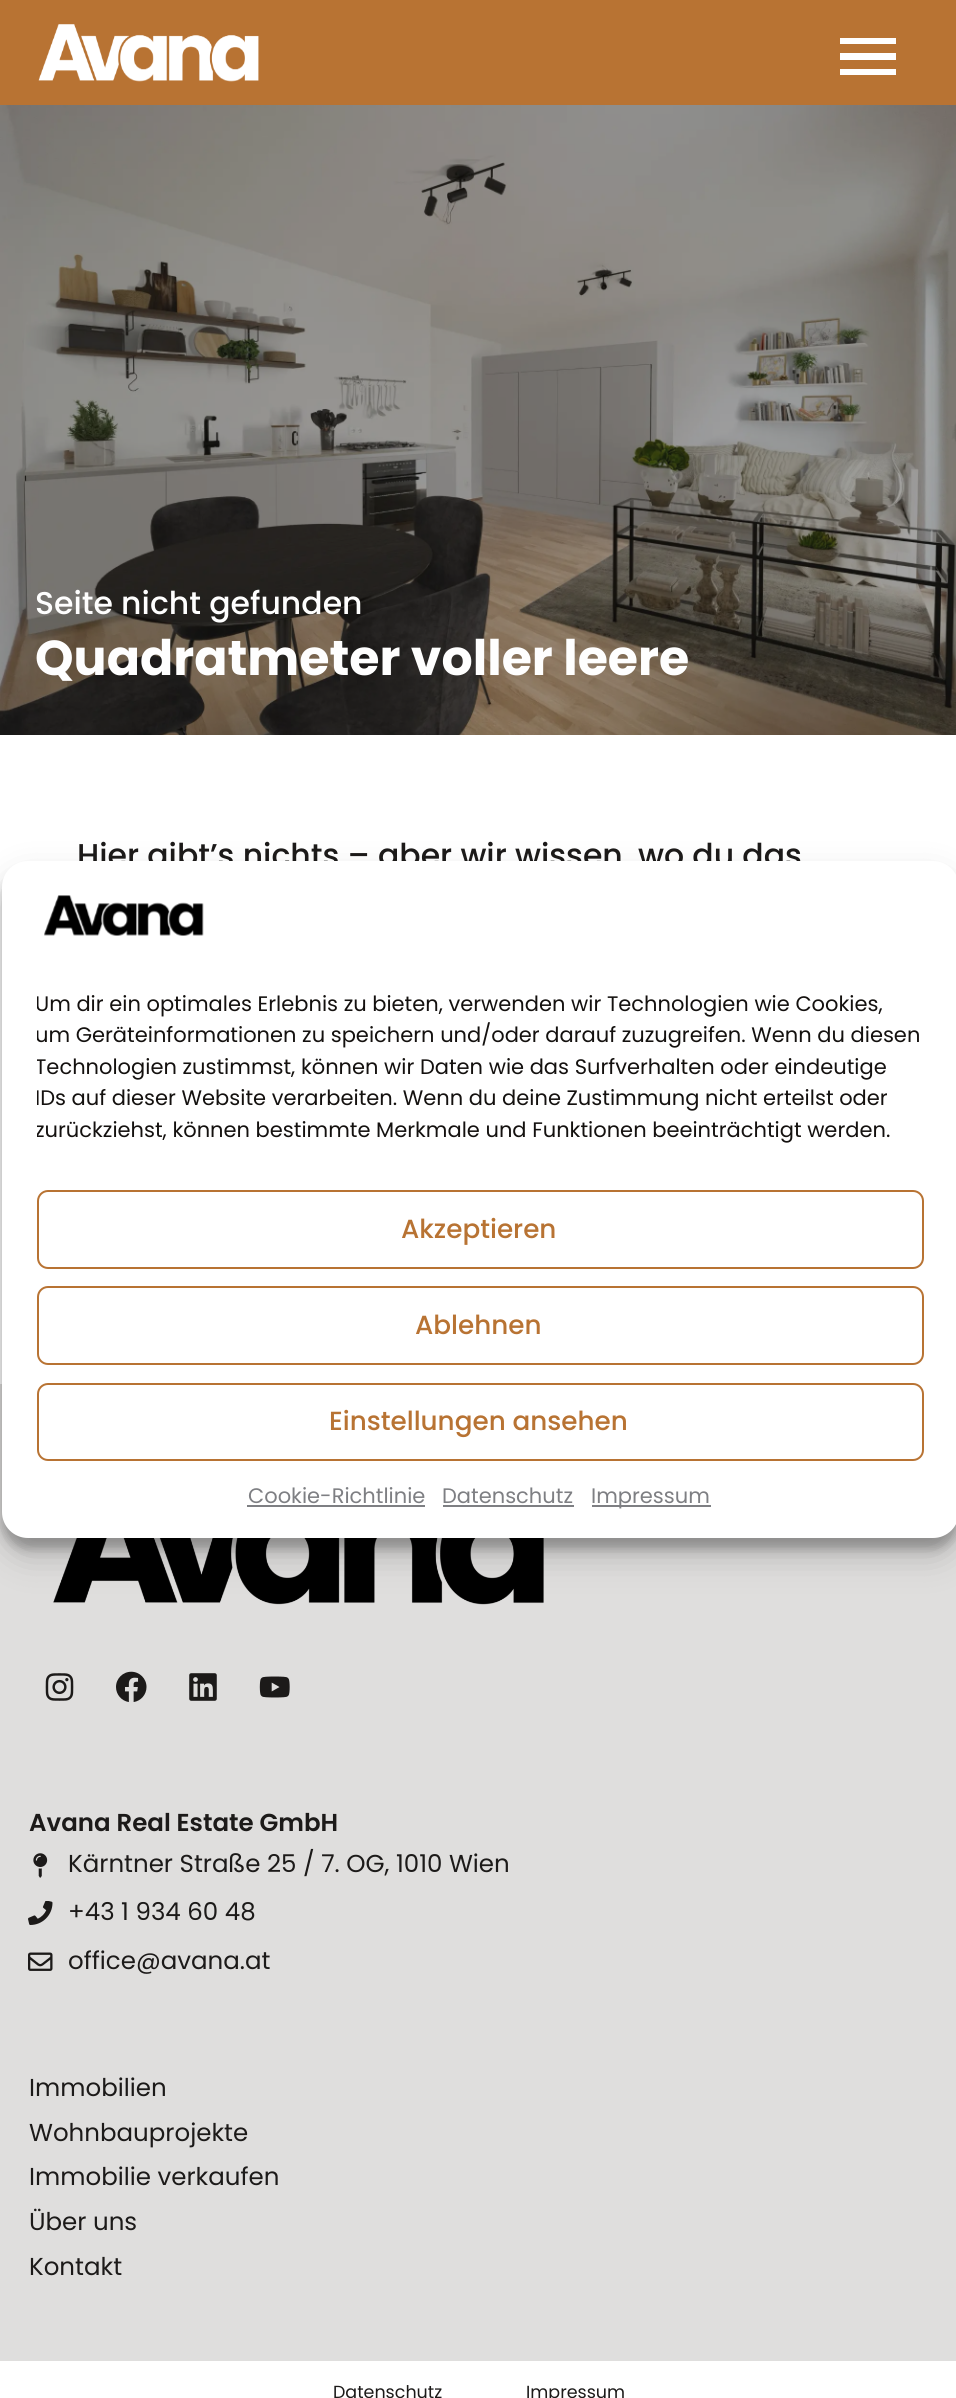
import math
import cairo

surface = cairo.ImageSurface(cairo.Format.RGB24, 956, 2398)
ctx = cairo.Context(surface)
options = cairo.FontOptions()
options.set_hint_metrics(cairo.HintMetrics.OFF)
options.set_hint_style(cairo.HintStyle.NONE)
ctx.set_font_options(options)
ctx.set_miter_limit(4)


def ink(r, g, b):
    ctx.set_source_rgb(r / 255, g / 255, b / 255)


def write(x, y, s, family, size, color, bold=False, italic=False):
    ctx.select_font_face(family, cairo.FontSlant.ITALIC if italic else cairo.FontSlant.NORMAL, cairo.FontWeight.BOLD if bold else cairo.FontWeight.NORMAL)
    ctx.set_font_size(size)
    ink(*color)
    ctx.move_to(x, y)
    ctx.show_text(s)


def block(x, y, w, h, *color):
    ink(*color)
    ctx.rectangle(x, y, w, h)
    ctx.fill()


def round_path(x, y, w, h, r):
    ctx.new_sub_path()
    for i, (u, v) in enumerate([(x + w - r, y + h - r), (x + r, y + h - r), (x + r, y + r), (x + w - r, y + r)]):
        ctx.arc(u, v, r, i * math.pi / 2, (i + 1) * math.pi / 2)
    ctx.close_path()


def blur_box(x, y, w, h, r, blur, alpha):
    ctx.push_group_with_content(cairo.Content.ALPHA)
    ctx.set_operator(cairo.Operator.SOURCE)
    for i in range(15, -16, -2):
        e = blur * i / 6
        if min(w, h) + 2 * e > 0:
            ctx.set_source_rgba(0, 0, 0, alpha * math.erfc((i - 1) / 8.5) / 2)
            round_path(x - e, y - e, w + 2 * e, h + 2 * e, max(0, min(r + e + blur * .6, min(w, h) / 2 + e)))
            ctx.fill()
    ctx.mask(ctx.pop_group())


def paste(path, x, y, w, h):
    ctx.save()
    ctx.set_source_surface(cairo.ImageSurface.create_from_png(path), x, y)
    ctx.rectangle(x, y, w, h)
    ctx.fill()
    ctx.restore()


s1 = dict(family="Poppins Medium", size=31.5, color=(254, 254, 254))
s2 = dict(family="Poppins", size=49, color=(254, 254, 254), bold=True)
s3 = dict(family="Poppins Medium", size=31.5, color=(28, 26, 25))
s4 = dict(family="Poppins", size=21, color=(20, 17, 15))
s5 = dict(family="Poppins Medium", size=26.25, color=(184, 115, 51))
s6 = dict(family="Poppins", size=21, color=(126, 127, 131))
s7 = dict(family="Poppins SemiBold", size=24.5, color=(28, 26, 25))
s8 = dict(family="Poppins", size=24.5, color=(28, 26, 25))
s9 = dict(family="Poppins", size=17.5, color=(28, 26, 25))

ink(255, 255, 255)
ctx.paint()
block(0, 0, 956, 105, 184, 115, 51)
paste("pic1.png", 38, 24, 221, 58)
ink(254, 254, 254)
ctx.new_path()
ctx.move_to(840, 75)
ctx.line_to(896, 75)
ctx.line_to(896, 69)
ctx.line_to(840, 69)
ctx.close_path()
ctx.move_to(840, 60)
ctx.line_to(896, 60)
ctx.line_to(896, 53)
ctx.line_to(840, 53)
ctx.close_path()
ctx.move_to(840, 38)
ctx.line_to(840, 44)
ctx.line_to(896, 44)
ctx.line_to(896, 38)
ctx.close_path()
ctx.fill()
paste("pic2.png", 0, 105, 956, 630)
write(35, 614, "Seite nicht gefunden", **s1)
write(35, 675, "Quadratmeter voller leere", **s2)
write(77, 866, "Hier gibt’s nichts – aber wir wissen, wo du das", **s3)
block(0, 1384, 956, 977, 223, 222, 221)
paste("pic4.png", 53, 1538, 491, 67)
ink(0, 0, 0)
blur_box(2, 872, 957, 677, 26, 5, 0.23)
blur_box(2, 879, 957, 677, 26, 17.5, 0.19)
ink(255, 255, 255)
round_path(2, 861, 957, 677, 26)
ctx.fill()
paste("pic3.png", 44, 895, 160, 41)
ctx.save()
ctx.rectangle(37, 989, 887, 166)
ctx.clip()
write(35, 1011, "Um dir ein optimales Erlebnis zu bieten, verwenden wir Technologien wie Cookies,", **s4)
write(35, 1042, "um Geräteinformationen zu speichern und/oder darauf zuzugreifen. Wenn du diesen", **s4)
write(35, 1074, "Technologien zustimmst, können wir Daten wie das Surfverhalten oder eindeutige", **s4)
write(35, 1105, "IDs auf dieser Website verarbeiten. Wenn du deine Zustimmung nicht erteilst oder", **s4)
write(35, 1137, "zurückziehst, können bestimmte Merkmale und Funktionen beeinträchtigt werden.", **s4)
ctx.restore()
round_path(38, 1191, 885, 77, 10)
ink(184, 115, 51)
ctx.stroke()
write(401, 1238, "Akzeptieren", **s5)
round_path(38, 1287, 885, 77, 10)
ctx.stroke()
write(415, 1334, "Ablehnen", **s5)
round_path(38, 1384, 885, 76, 10)
ctx.stroke()
write(329, 1430, "Einstellungen ansehen", **s5)
write(248, 1503, "Cookie-Richtlinie", **s6)
block(247, 1505, 178, 2, 126, 127, 131)
write(442, 1503, "Datenschutz", **s6)
block(443, 1505, 131, 2, 126, 127, 131)
block(592, 1505, 119, 2, 126, 127, 131)
write(591, 1503, "Impressum", **s6)
paste("pic5.png", 45, 1673, 29, 28)
paste("pic6.png", 116, 1671, 31, 31)
paste("pic7.png", 189, 1673, 28, 28)
paste("pic8.png", 259, 1676, 31, 22)
write(29, 1831, "Avana Real Estate GmbH", **s7)
paste("pic9.png", 33, 1853, 15, 25)
write(68, 1872, "Kärntner Straße 25 / 7. OG, 1010 Wien", **s8)
paste("pic10.png", 28, 1901, 25, 24)
write(68, 1920, "+43 1 934 60 48", **s8)
paste("pic11.png", 28, 1952, 25, 19)
write(68, 1969, "office@avana.at", **s8)
write(29, 2096, "Immobilien", **s8)
write(29, 2141, "Wohnbauprojekte", **s8)
write(29, 2185, "Immobilie verkaufen", **s8)
write(29, 2230, "Über uns", **s8)
write(29, 2275, "Kontakt", **s8)
write(333, 2398, "Datenschutz", **s9)
write(526, 2398, "Impressum", **s9)
surface.write_to_png("screenshot.png")
